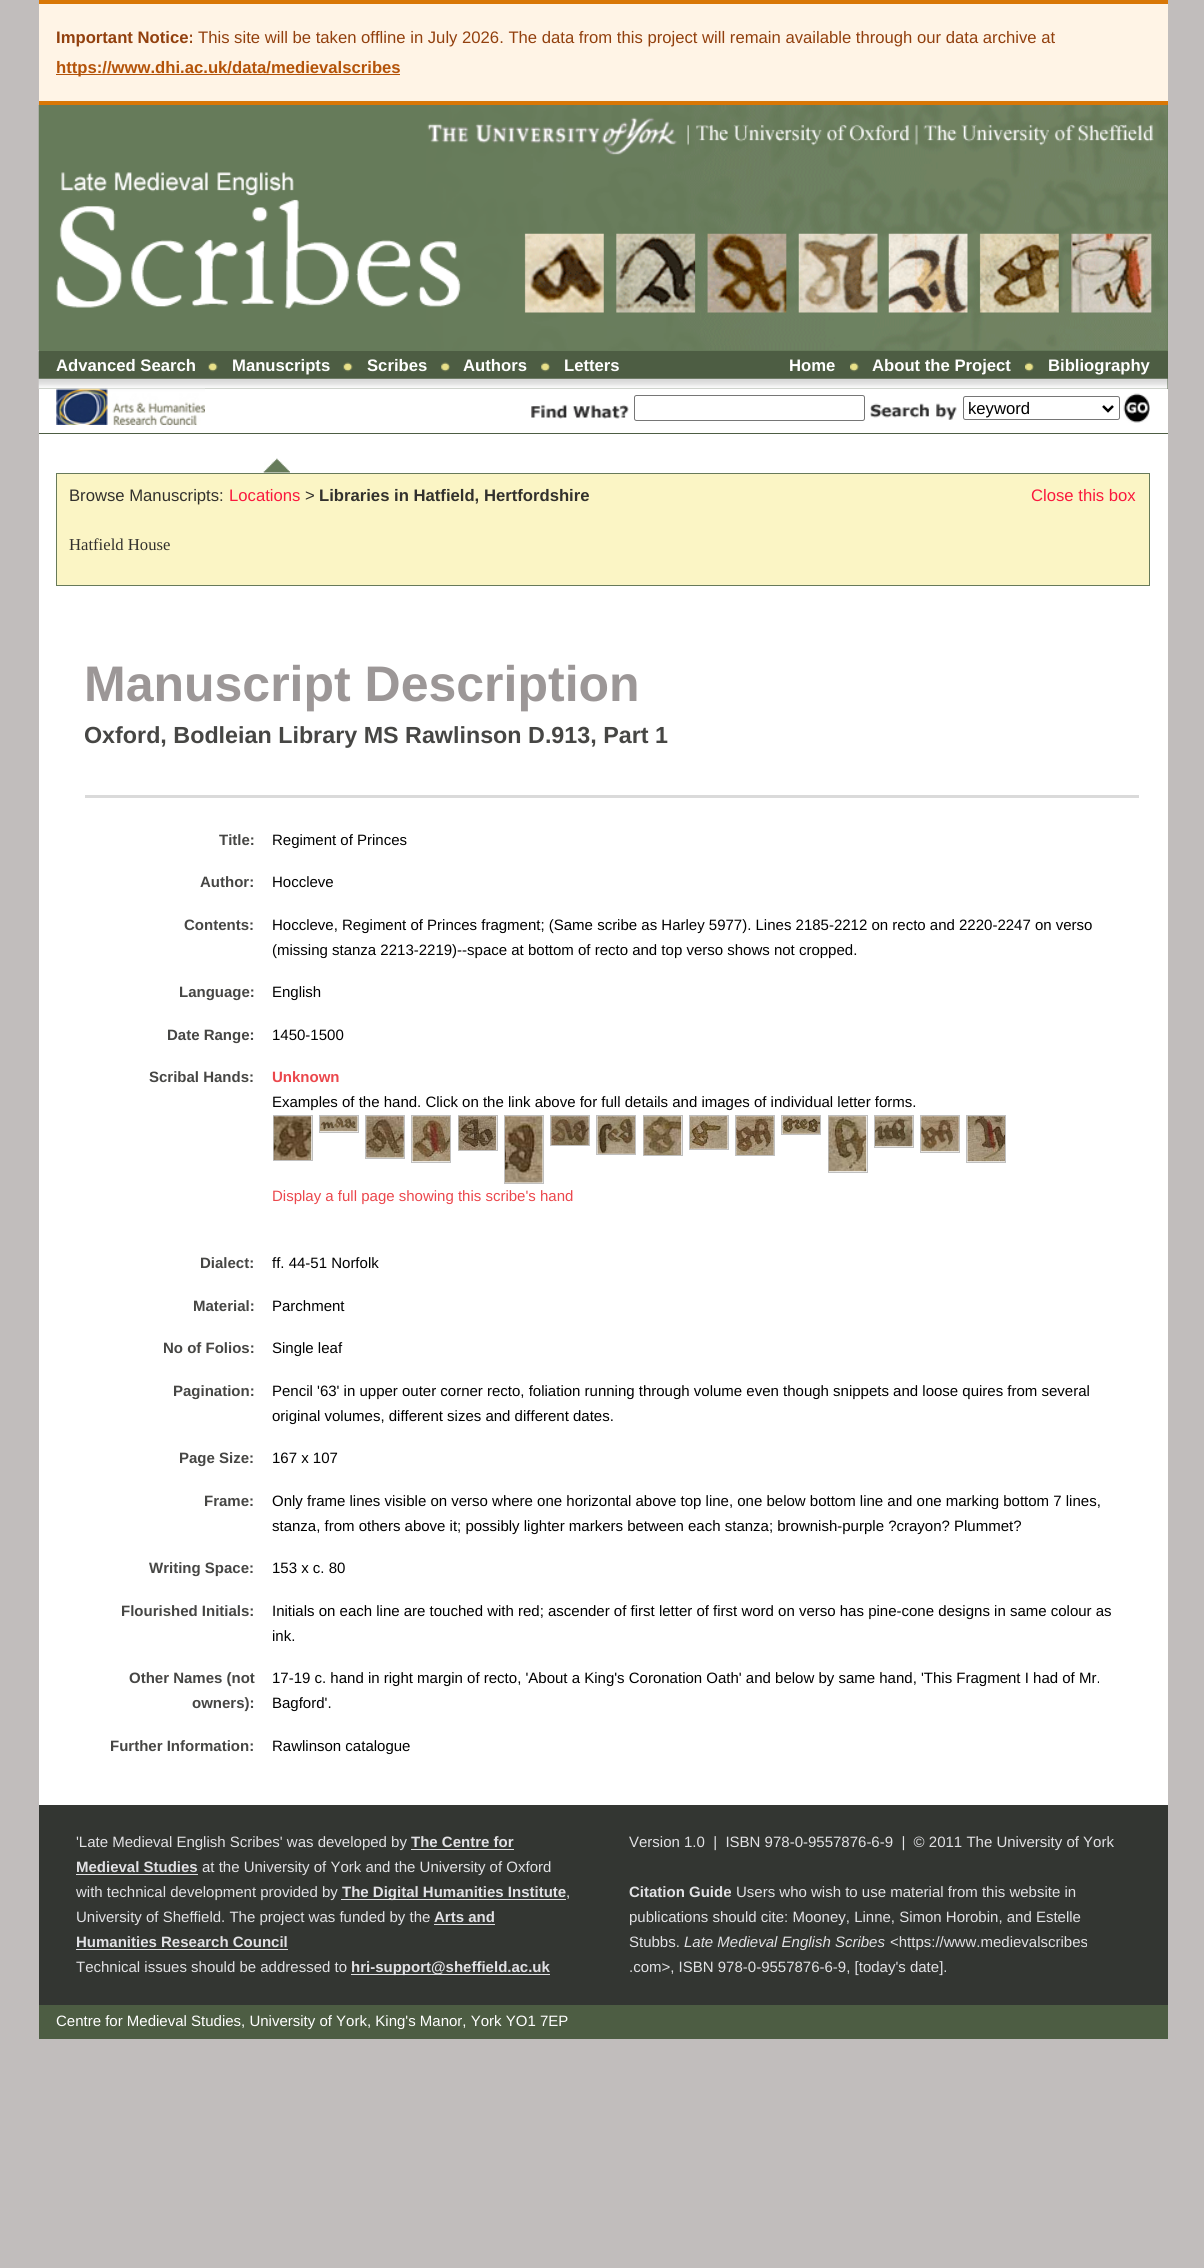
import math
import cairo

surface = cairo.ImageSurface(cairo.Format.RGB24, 1204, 2268)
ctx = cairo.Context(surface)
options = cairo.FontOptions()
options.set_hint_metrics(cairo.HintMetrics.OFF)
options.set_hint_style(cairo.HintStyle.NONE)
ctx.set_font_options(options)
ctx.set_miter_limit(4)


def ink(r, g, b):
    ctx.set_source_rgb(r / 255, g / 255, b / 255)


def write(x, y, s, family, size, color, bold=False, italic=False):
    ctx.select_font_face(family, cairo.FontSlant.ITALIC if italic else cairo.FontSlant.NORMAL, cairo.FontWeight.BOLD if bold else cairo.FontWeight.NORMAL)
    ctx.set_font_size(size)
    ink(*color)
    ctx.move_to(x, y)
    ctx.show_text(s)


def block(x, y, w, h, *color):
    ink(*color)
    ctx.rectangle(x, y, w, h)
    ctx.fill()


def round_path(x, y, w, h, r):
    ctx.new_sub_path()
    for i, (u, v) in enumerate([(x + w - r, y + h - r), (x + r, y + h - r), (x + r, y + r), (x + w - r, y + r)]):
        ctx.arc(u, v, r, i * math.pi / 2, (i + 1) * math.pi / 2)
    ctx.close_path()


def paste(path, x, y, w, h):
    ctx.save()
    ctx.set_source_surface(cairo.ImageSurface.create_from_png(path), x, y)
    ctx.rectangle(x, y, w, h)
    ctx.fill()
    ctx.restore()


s1 = dict(family="Liberation Sans", size=16.67, color=(146, 64, 14), bold=True)
s2 = dict(family="Liberation Sans", size=16.67, color=(146, 64, 14))
s3 = dict(family="Liberation Sans", size=16.67, color=(180, 83, 9), bold=True)
s4 = dict(family="Liberation Sans", size=16.67, color=(255, 255, 255), bold=True)
s5 = dict(family="Liberation Sans", size=16.67, color=(0, 0, 0))
s6 = dict(family="Liberation Sans", size=16.67, color=(50, 49, 45))
s7 = dict(family="Liberation Sans", size=16.67, color=(250, 24, 61))
s8 = dict(family="Liberation Sans", size=16.67, color=(50, 49, 45), bold=True)
s9 = dict(family="Liberation Serif", size=16.67, color=(50, 49, 45))
s10 = dict(family="Liberation Sans", size=50, color=(156, 151, 151), bold=True)
s11 = dict(family="Liberation Sans", size=23.3, color=(70, 70, 68), bold=True)
s12 = dict(family="Liberation Sans", size=15, color=(70, 70, 68), bold=True)
s13 = dict(family="Liberation Sans", size=15, color=(0, 0, 0))
s14 = dict(family="Liberation Sans", size=15, color=(235, 71, 76), bold=True)
s15 = dict(family="Liberation Sans", size=15, color=(235, 71, 76))
s16 = dict(family="Liberation Sans", size=15, color=(226, 226, 229))
s17 = dict(family="Liberation Sans", size=15, color=(226, 226, 229), bold=True)
s18 = dict(family="Liberation Sans", size=15, color=(226, 226, 229), italic=True)
s19 = dict(family="Liberation Sans", size=15, color=(255, 255, 255))

ink(193, 189, 188)
ctx.paint()
block(39, 389, 1129, 1416, 255, 255, 255)
block(39, 4, 1129, 97, 255, 244, 230)
block(39, 0, 1129, 4, 217, 119, 6)
block(39, 101, 1129, 4, 217, 119, 6)
write(56, 43, "Important Notice:", **s1)
write(198, 43, "This site will be taken offline in July 2026. The data from this project will remain available through our data archive at", **s2)
block(56, 74, 344, 1, 180, 83, 9)
write(56, 73, "https://www.dhi.ac.uk/data/medievalscribes", **s3)
block(39, 105, 1129, 246, 102, 123, 90)
paste("pic1.png", 38, 105, 1130, 245)
block(39, 351, 1129, 38, 77, 93, 67)
paste("pic2.png", 38, 351, 1130, 38)
write(56, 371, "Advanced Search", **s4)
paste("pic3.png", 208, 362, 10, 10)
write(232, 371, "Manuscripts", **s4)
paste("pic4.png", 343, 362, 10, 10)
write(367, 371, "Scribes", **s4)
paste("pic5.png", 441, 362, 9, 10)
write(463, 371, "Authors", **s4)
paste("pic5.png", 541, 362, 9, 10)
write(564, 371, "Letters", **s4)
write(789, 371, "Home", **s4)
paste("pic6.png", 850, 362, 9, 10)
write(872, 371, "About the Project", **s4)
paste("pic7.png", 1025, 362, 9, 10)
write(1048, 371, "Bibliography", **s4)
block(39, 433, 1129, 1, 77, 93, 67)
paste("pic8.png", 56, 388, 149, 37)
paste("pic9.png", 531, 404, 98, 15)
round_path(634.5, 395.5, 230, 25, 2)
ink(118, 118, 118)
ctx.set_line_width(1)
ctx.stroke()
paste("pic10.png", 870, 403, 87, 17)
round_path(963.5, 396.5, 156, 23, 2)
ctx.stroke()
ctx.new_path()
ctx.move_to(1103, 406)
ctx.line_to(1108, 411)
ctx.line_to(1113, 406)
ink(0, 0, 0)
ctx.set_line_width(2.5)
ctx.stroke()
write(968, 414, "keyword", **s5)
paste("pic11.png", 1123, 393, 27, 30)
paste("pic12.png", 263, 458, 27, 15)
ink(251, 245, 197)
ctx.rectangle(56.5, 473.5, 1093, 112)
ctx.fill_preserve()
ink(103, 122, 90)
ctx.set_line_width(1)
ctx.stroke()
write(69, 501, "Browse Manuscripts:", **s6)
write(229, 501, "Locations", **s7)
write(305, 501, ">", **s6)
write(319, 501, "Libraries in Hatfield, Hertfordshire", **s8)
write(1031, 501, "Close this box", **s7)
write(69, 550, "Hatfield House", **s9)
write(84, 701, "Manuscript Description", **s10)
write(84, 743, "Oxford, Bodleian Library MS Rawlinson D.913, Part 1", **s11)
block(85, 795, 1054, 3, 218, 218, 218)
write(219, 845, "Title:", **s12)
write(272, 845, "Regiment of Princes", **s13)
write(200, 887, "Author:", **s12)
write(272, 887, "Hoccleve", **s13)
write(184, 930, "Contents:", **s12)
write(272, 930, "Hoccleve, Regiment of Princes fragment; (Same scribe as Harley 5977). Lines 2185-2212 on recto and 2220-2247 on verso", **s13)
write(272, 955, "(missing stanza 2213-2219)--space at bottom of recto and top verso shows not cropped.", **s13)
write(179, 997, "Language:", **s12)
write(272, 997, "English", **s13)
write(167, 1040, "Date Range:", **s12)
write(272, 1040, "1450-1500", **s13)
write(149, 1082, "Scribal Hands:", **s12)
write(272, 1082, "Unknown", **s14)
write(272, 1107, "Examples of the hand. Click on the link above for full details and images of individual letter forms.", **s13)
ctx.rectangle(273.5, 1115.5, 39, 45)
ink(192, 192, 192)
ctx.stroke()
paste("pic13.png", 273, 1116, 39, 44)
ctx.rectangle(319.5, 1115.5, 39, 17)
ctx.stroke()
paste("pic14.png", 320, 1116, 38, 16)
ctx.rectangle(365.5, 1115.5, 39, 43)
ctx.stroke()
paste("pic15.png", 366, 1116, 38, 42)
ctx.rectangle(411.5, 1115.5, 39, 47)
ctx.stroke()
paste("pic16.png", 412, 1116, 38, 46)
ctx.rectangle(458.5, 1115.5, 39, 35)
ctx.stroke()
paste("pic17.png", 458, 1116, 39, 34)
ctx.rectangle(504.5, 1115.5, 39, 68)
ctx.stroke()
paste("pic18.png", 505, 1116, 38, 67)
ctx.rectangle(550.5, 1115.5, 39, 30)
ctx.stroke()
paste("pic19.png", 551, 1116, 38, 29)
ctx.rectangle(596.5, 1115.5, 39, 39)
ctx.stroke()
paste("pic20.png", 597, 1116, 38, 38)
ctx.rectangle(643.5, 1115.5, 39, 40)
ctx.stroke()
paste("pic21.png", 643, 1116, 39, 39)
ctx.rectangle(689.5, 1115.5, 39, 34)
ctx.stroke()
paste("pic22.png", 690, 1116, 38, 33)
ctx.rectangle(735.5, 1115.5, 39, 40)
ctx.stroke()
paste("pic23.png", 736, 1116, 38, 39)
ctx.rectangle(781.5, 1115.5, 39, 19)
ctx.stroke()
paste("pic24.png", 782, 1116, 38, 18)
ctx.rectangle(828.5, 1115.5, 39, 57)
ctx.stroke()
paste("pic25.png", 828, 1116, 39, 56)
ctx.rectangle(874.5, 1115.5, 39, 32)
ctx.stroke()
paste("pic26.png", 875, 1116, 38, 31)
ctx.rectangle(920.5, 1115.5, 39, 37)
ctx.stroke()
paste("pic27.png", 921, 1116, 38, 36)
ctx.rectangle(966.5, 1115.5, 39, 47)
ctx.stroke()
paste("pic28.png", 967, 1116, 38, 46)
write(272, 1201, "Display a full page showing this scribe's hand", **s15)
write(200, 1268, "Dialect:", **s12)
write(272, 1268, "ff. 44-51 Norfolk", **s13)
write(193, 1311, "Material:", **s12)
write(272, 1311, "Parchment", **s13)
write(163, 1353, "No of Folios:", **s12)
write(272, 1353, "Single leaf", **s13)
write(173, 1396, "Pagination:", **s12)
write(272, 1396, "Pencil '63' in upper outer corner recto, foliation running through volume even though snippets and loose quires from several", **s13)
write(272, 1421, "original volumes, different sizes and different dates.", **s13)
write(179, 1463, "Page Size:", **s12)
write(272, 1463, "167 x 107", **s13)
write(204, 1506, "Frame:", **s12)
write(272, 1506, "Only frame lines visible on verso where one horizontal above top line, one below bottom line and one marking bottom 7 lines,", **s13)
write(272, 1531, "stanza, from others above it; possibly lighter markers between each stanza; brownish-purple ?crayon? Plummet?", **s13)
write(149, 1573, "Writing Space:", **s12)
write(272, 1573, "153 x c. 80", **s13)
write(121, 1616, "Flourished Initials:", **s12)
write(272, 1616, "Initials on each line are touched with red; ascender of first letter of first word on verso has pine-cone designs in same colour as", **s13)
write(272, 1641, "ink.", **s13)
write(129, 1683, "Other Names (not", **s12)
write(192, 1708, "owners):", **s12)
write(272, 1683, "17-19 c. hand in right margin of recto, 'About a King's Coronation Oath' and below by same hand, 'This Fragment I had of Mr.", **s13)
write(272, 1708, "Bagford'.", **s13)
write(110, 1751, "Further Information:", **s12)
write(272, 1751, "Rawlinson catalogue", **s13)
block(39, 1805, 1129, 200, 51, 54, 50)
write(76, 1847, "'Late Medieval English Scribes' was developed by", **s16)
write(411, 1847, "The Centre for", **s17)
block(411, 1849, 103, 1, 226, 226, 229)
write(76, 1872, "Medieval Studies", **s17)
block(76, 1874, 122, 1, 226, 226, 229)
write(202, 1872, "at the University of York and the University of Oxford", **s16)
write(76, 1897, "with technical development provided by", **s16)
block(341, 1899, 225, 1, 226, 226, 229)
write(342, 1897, "The Digital Humanities Institute", **s17)
write(566, 1897, ",", **s16)
write(76, 1922, "University of Sheffield. The project was funded by the", **s16)
write(434, 1922, "Arts and", **s17)
block(434, 1924, 61, 1, 226, 226, 229)
write(76, 1947, "Humanities Research Council", **s17)
block(76, 1949, 212, 1, 226, 226, 229)
write(76, 1972, "Technical issues should be addressed to", **s16)
block(351, 1974, 199, 1, 226, 226, 229)
write(351, 1972, "hri-support@sheffield.ac.uk", **s17)
write(629, 1847, "Version 1.0  |  ISBN 978-0-9557876-6-9  |  © 2011 The University of York", **s16)
write(629, 1897, "Citation Guide", **s17)
write(736, 1897, "Users who wish to use material from this website in", **s16)
write(629, 1922, "publications should cite: Mooney, Linne, Simon Horobin, and Estelle", **s16)
write(629, 1947, "Stubbs.", **s16)
write(684, 1947, "Late Medieval English Scribes", **s18)
write(890, 1947, "<https://www.medievalscribes", **s16)
write(629, 1972, ".com>, ISBN 978-0-9557876-6-9, [today's date].", **s16)
block(39, 2005, 1129, 34, 77, 93, 67)
write(56, 2026, "Centre for Medieval Studies, University of York, King's Manor, York YO1 7EP", **s19)
surface.write_to_png("screenshot.png")
